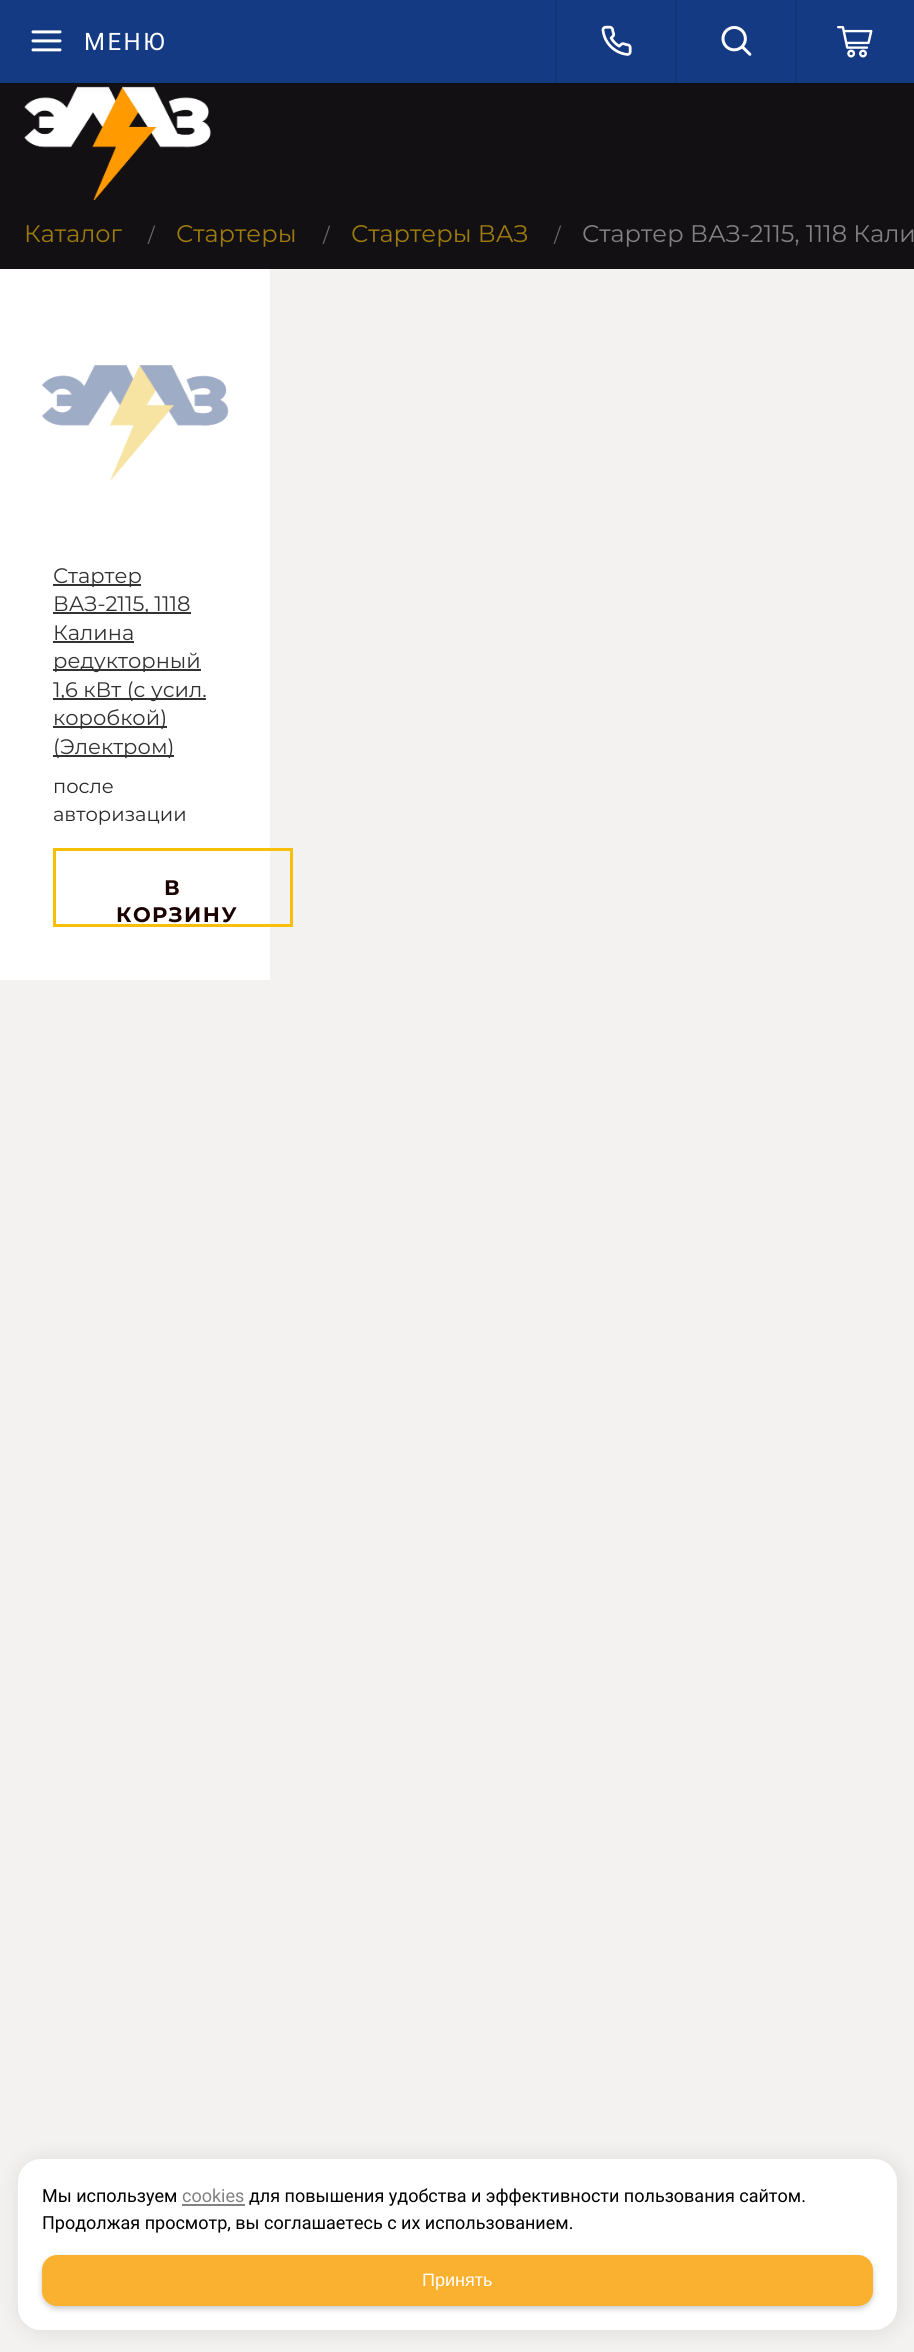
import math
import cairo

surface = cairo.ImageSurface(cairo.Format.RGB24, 914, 2352)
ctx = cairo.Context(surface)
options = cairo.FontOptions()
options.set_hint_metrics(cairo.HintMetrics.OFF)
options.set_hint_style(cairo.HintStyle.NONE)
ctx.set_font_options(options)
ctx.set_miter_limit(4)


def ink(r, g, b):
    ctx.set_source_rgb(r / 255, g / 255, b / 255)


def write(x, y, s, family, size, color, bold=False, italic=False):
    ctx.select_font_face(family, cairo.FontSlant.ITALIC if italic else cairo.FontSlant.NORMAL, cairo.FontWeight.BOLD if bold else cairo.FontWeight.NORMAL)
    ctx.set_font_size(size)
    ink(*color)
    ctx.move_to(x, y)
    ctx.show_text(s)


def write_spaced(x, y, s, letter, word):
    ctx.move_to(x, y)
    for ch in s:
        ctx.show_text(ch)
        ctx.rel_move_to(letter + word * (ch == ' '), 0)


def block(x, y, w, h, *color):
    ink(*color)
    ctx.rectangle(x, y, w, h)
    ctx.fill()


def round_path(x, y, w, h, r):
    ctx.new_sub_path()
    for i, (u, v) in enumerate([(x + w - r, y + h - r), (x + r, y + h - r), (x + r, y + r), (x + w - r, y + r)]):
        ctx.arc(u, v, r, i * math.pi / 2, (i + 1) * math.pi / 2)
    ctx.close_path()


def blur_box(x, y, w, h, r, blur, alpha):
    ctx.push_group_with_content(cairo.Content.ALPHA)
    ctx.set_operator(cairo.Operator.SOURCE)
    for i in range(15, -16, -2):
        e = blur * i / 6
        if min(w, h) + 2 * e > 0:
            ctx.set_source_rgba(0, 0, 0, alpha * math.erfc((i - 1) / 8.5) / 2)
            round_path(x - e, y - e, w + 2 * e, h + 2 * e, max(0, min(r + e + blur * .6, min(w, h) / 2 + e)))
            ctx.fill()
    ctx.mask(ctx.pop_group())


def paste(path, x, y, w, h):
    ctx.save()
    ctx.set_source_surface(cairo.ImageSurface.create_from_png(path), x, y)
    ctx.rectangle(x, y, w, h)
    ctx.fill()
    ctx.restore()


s1 = dict(family="Montserrat", size=24, color=(158, 123, 13))
s2 = dict(family="Montserrat", size=19.5, color=(105, 105, 105))
s3 = dict(family="Montserrat", size=24, color=(130, 130, 130))
s4 = dict(family="Montserrat", size=21, color=(51, 51, 51))
s5 = dict(family="Montserrat", size=19.5, color=(40, 41, 43))
s6 = dict(family="Roboto", size=18, color=(0, 0, 0))
s7 = dict(family="Roboto", size=18, color=(130, 130, 130))
s8 = dict(family="Liberation Sans", size=18, color=(255, 255, 255))

ink(243, 242, 241)
ctx.paint()
block(0, 83, 914, 186, 18, 16, 19)
paste("pic5.png", 24, 86, 187, 114)
ink(16, 15, 28)
blur_box(-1, -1, 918, 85, 0, 7.5, 0.07)
block(0, 0, 914, 83, 21, 58, 132)
paste("pic1.png", 31, 30, 31, 22)
ctx.select_font_face("Roboto")
ctx.set_font_size(24)
ink(255, 255, 255)
write_spaced(84, 50, "МЕНЮ", 2.5, 0)
block(555, 0, 2, 83, 20, 54, 122)
paste("pic2.png", 601, 25, 31, 31)
block(675, 0, 2, 83, 20, 54, 122)
paste("pic3.png", 721, 26, 31, 30)
block(795, 0, 2, 83, 20, 54, 122)
paste("pic4.png", 837, 26, 36, 32)
write(24, 242, "Каталог", **s1)
write(148, 242, "/", **s2)
write(176, 242, "Стартеры", **s1)
write(323, 242, "/", **s2)
write(351, 242, "Стартеры ВАЗ", **s1)
write(554, 242, "/", **s2)
write(582, 242, "Стартер ВАЗ-2115, 1118 Кали", **s3)
ink(255, 255, 255)
round_path(0, 269, 270, 711, 1.5)
ctx.fill()
paste("pic6.png", 42, 365, 187, 116)
block(53, 584, 88, 2, 51, 51, 51)
write(53, 583, "Стартер", **s4)
block(53, 612, 138, 2, 51, 51, 51)
write(53, 611, "ВАЗ-2115, 1118", **s4)
write(53, 640, "Калина", **s4)
block(53, 641, 81, 2, 51, 51, 51)
block(53, 669, 148, 2, 51, 51, 51)
write(53, 668, "редукторный", **s4)
block(53, 698, 153, 2, 51, 51, 51)
write(53, 697, "1,6 кВт (с усил.", **s4)
block(53, 726, 114, 2, 51, 51, 51)
write(53, 725, "коробкой)", **s4)
block(53, 755, 121, 2, 51, 51, 51)
write(53, 754, "(Электром)", **s4)
write(53, 793, "после", **s5)
write(53, 821, "авторизации", **s5)
ctx.rectangle(54.5, 849.5, 237, 76)
ink(247, 191, 9)
ctx.set_line_width(3)
ctx.stroke()
ctx.select_font_face("Montserrat", cairo.FontSlant.NORMAL, cairo.FontWeight.BOLD)
ctx.set_font_size(21)
ink(26, 2, 0)
write_spaced(164, 895, "В", 1.5, 0)
write_spaced(116, 922, "КОРЗИНУ", 1.5, 0)
ink(0, 0, 0)
blur_box(20, 2160, 879, 171, 23, 11, 0.1)
ink(255, 255, 255)
round_path(18, 2159, 879, 171, 23)
ctx.fill()
write(42, 2202, "Мы используем", **s6)
write(182, 2202, "cookies", **s7)
block(182, 2204, 63, 2, 129, 129, 129)
write(249, 2202, "для повышения удобства и эффективности пользования сайтом.", **s6)
write(42, 2229, "Продолжая просмотр, вы соглашаетесь с их использованием.", **s6)
ink(0, 0, 0)
blur_box(42, 2258, 831, 51, 15, 3, 0.2)
ink(250, 177, 48)
round_path(42, 2255, 831, 51, 15)
ctx.fill()
write(422, 2286, "Принять", **s8)
surface.write_to_png("screenshot.png")
